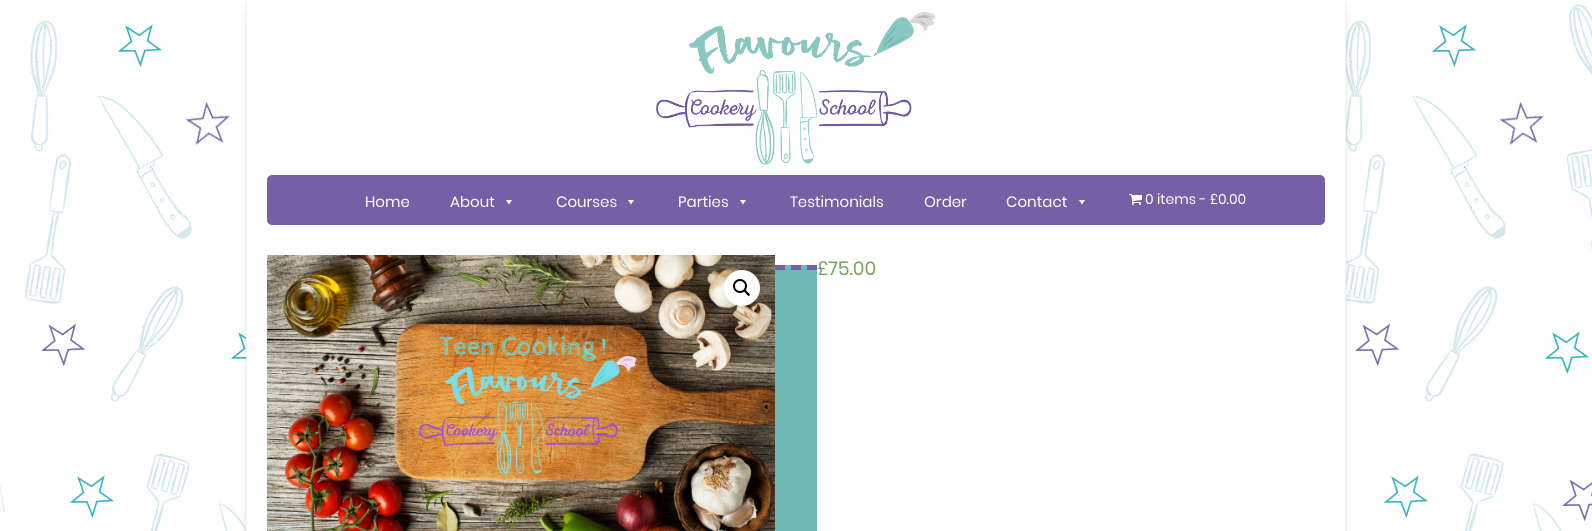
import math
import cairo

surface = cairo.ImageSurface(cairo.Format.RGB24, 1592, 531)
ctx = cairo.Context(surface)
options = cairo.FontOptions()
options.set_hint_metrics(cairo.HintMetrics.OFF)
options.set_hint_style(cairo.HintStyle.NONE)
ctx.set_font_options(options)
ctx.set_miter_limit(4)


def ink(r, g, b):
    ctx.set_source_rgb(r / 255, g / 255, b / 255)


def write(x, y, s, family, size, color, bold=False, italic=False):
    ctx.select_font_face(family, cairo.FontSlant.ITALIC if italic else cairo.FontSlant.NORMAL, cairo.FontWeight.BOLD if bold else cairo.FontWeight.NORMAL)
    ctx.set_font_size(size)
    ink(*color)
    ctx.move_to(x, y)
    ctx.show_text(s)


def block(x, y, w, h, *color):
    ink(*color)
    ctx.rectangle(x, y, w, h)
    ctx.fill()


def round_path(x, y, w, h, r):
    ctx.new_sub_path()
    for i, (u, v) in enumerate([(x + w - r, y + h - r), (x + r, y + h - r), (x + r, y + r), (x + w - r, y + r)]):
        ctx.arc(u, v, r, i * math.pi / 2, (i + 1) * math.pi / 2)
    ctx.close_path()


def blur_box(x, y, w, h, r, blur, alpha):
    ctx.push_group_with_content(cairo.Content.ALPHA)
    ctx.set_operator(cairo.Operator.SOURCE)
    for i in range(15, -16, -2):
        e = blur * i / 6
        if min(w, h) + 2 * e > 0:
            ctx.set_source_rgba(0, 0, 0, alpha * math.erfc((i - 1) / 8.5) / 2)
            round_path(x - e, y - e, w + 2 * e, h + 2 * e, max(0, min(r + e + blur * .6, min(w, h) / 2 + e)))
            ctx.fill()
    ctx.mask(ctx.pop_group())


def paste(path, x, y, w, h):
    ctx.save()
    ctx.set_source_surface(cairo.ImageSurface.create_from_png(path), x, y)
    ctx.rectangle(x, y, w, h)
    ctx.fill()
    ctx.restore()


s1 = dict(family="Poppins", size=15, color=(255, 255, 255))
s2 = dict(family="Poppins", size=14, color=(255, 255, 255))
s3 = dict(family="Poppins", size=19, color=(119, 164, 100))

ink(255, 255, 255)
ctx.paint()
paste("pic1.png", 0, 4, 1592, 527)
ink(0, 0, 0)
blur_box(258, 12, 1076, 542, 0, 7.5, 1)
block(247, 0, 1098, 531, 255, 255, 255)
block(1345, 0, 1, 531, 243, 246, 246)
block(246, 0, 1, 531, 243, 246, 246)
paste("pic2.png", 656, 11, 280, 154)
ink(119, 95, 165)
round_path(267, 175, 1058, 50, 5)
ctx.fill()
write(365, 207, "Home", **s1)
write(450, 207, "About", **s1)
ctx.new_path()
ctx.move_to(512, 200)
ctx.line_to(509, 204.5)
ctx.line_to(506, 200)
ctx.close_path()
ctx.fill()
write(556, 207, "Courses", **s1)
ctx.new_path()
ctx.move_to(634, 200)
ctx.line_to(631, 204.5)
ctx.line_to(628, 200)
ctx.close_path()
ctx.fill()
write(678, 207, "Parties", **s1)
ctx.new_path()
ctx.move_to(746, 200)
ctx.line_to(743, 204.5)
ctx.line_to(740, 200)
ctx.close_path()
ctx.fill()
write(790, 207, "Testimonials", **s1)
write(924, 207, "Order", **s1)
write(1006, 207, "Contact", **s1)
ctx.new_path()
ctx.move_to(1085, 200)
ctx.line_to(1082, 204.5)
ctx.line_to(1079, 200)
ctx.close_path()
ctx.fill()
paste("pic3.png", 1129, 194, 13, 11)
write(1145, 204, "0 items - £0.00", **s2)
block(775, 265, 42, 266, 110, 185, 180)
ctx.new_path()
ctx.move_to(775, 267.5)
ctx.line_to(785, 267.5)
ctx.move_to(791, 267.5)
ctx.line_to(801, 267.5)
ctx.move_to(807, 267.5)
ctx.line_to(817, 267.5)
ink(119, 95, 165)
ctx.set_line_width(5)
ctx.stroke()
paste("pic4.png", 267, 255, 508, 276)
ink(255, 255, 255)
ctx.arc(742, 288, 18, 0, 2 * math.pi)
ctx.fill()
ctx.arc(740, 286, 6, 0, 2 * math.pi)
ink(0, 0, 0)
ctx.set_line_width(2)
ctx.stroke()
ctx.new_path()
ctx.move_to(744, 290)
ctx.curve_to(745, 288.5, 747, 291.5, 747.5, 292)
ctx.curve_to(748, 292.5, 751, 294.5, 749.5, 295.5)
ctx.curve_to(748.5, 297, 746.5, 294, 746, 293.5)
ctx.curve_to(745.5, 293, 743, 291, 744, 290)
ctx.close_path()
ctx.fill()
write(817, 275, "£75.00", **s3)
surface.write_to_png("screenshot.png")
